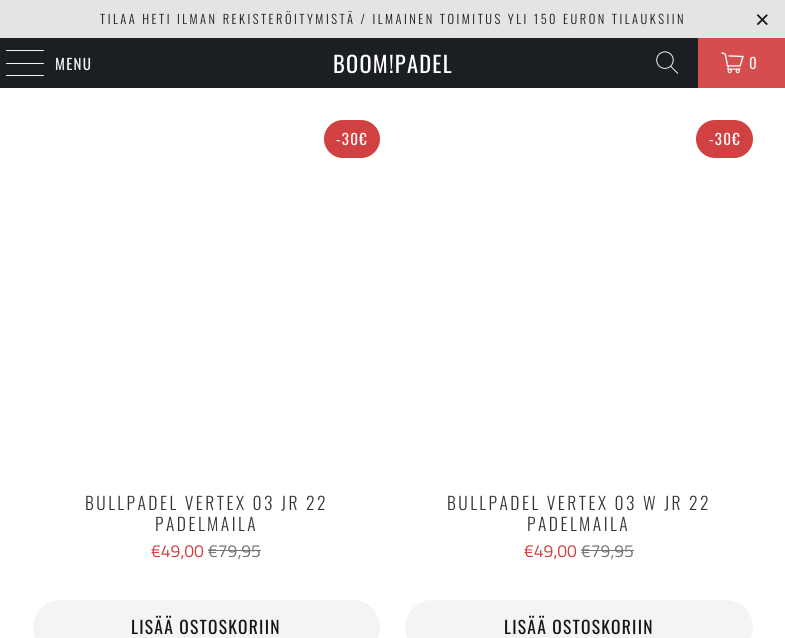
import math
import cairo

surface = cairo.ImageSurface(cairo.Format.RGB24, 785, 638)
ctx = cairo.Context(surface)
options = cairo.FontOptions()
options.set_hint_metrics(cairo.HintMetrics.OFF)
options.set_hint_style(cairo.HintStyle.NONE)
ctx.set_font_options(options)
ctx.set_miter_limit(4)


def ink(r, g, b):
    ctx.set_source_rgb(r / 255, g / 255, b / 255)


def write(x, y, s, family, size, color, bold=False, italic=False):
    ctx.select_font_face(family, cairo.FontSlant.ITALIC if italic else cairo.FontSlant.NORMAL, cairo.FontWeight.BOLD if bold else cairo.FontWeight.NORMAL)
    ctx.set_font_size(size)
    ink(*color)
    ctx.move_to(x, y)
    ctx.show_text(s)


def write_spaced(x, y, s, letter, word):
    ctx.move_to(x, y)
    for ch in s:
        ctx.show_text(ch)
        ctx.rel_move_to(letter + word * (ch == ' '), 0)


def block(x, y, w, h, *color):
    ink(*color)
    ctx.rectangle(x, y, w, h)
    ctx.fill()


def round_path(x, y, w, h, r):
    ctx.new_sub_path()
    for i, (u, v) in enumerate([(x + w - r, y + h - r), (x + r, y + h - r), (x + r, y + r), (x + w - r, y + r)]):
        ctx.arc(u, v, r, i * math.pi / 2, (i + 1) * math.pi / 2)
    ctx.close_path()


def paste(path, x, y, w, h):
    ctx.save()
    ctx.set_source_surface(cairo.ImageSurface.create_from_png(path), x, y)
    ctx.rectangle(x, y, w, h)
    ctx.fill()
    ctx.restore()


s1 = dict(family="Titillium Web", size=17.5, color=(210, 65, 65))
s2 = dict(family="Titillium Web", size=17.5, color=(118, 117, 117))

ink(255, 255, 255)
ctx.paint()
block(0, 0, 785, 38, 228, 228, 228)
ctx.select_font_face("Oswald Light")
ctx.set_font_size(12.5)
ink(21, 21, 21)
write_spaced(100, 24, "TILAA HETI ILMAN REKISTERÖITYMISTÄ / ILMAINEN TOIMITUS YLI 150 EURON TILAUKSIIN", 2.5, 0)
ctx.select_font_face("Liberation Sans")
ctx.set_font_size(25)
write_spaced(755, 28, "×", 2.5, 0)
block(0, 38, 698, 50, 27, 31, 35)
ink(244, 244, 244)
round_path(6, 50, 38, 1, 0.5)
ctx.fill()
round_path(6, 63, 38, 1, 0.5)
ctx.fill()
round_path(6, 75, 38, 1, 0.5)
ctx.fill()
ctx.select_font_face("Oswald")
ctx.set_font_size(15)
write_spaced(55, 70, "MENU", 1.25, 0)
ctx.set_font_size(22.5)
ink(255, 255, 255)
write_spaced(333, 73, "BOOM!PADEL", 1.25, 0)
paste("pic1.png", 656, 51, 23, 23)
block(698, 38, 87, 50, 213, 77, 77)
paste("pic2.png", 721, 52, 23, 22)
ctx.set_font_size(15)
ink(244, 244, 244)
write_spaced(749, 69, "0", 1.25, 0)
ink(210, 65, 65)
round_path(324, 120, 56, 38, 19)
ctx.fill()
ink(255, 255, 255)
write_spaced(336, 145, "-30€", 1.25, 0)
ctx.select_font_face("Oswald Light")
ctx.set_font_size(17.5)
ink(51, 51, 51)
write_spaced(85, 510, "BULLPADEL VERTEX 03 JR 22", 2.5, 0)
write_spaced(155, 531, "PADELMAILA", 2.5, 0)
write(151, 557, "€49,00", **s1)
write(208, 557, "€79,95", **s2)
block(208, 550, 53, 1, 118, 117, 117)
ink(244, 244, 244)
round_path(33.5, 600.5, 346, 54, 27)
ctx.fill_preserve()
ctx.set_line_width(1)
ctx.stroke()
ctx.select_font_face("Oswald")
ink(21, 21, 21)
write_spaced(131, 634, "LISÄÄ OSTOSKORIIN", 1.25, 0)
ink(210, 65, 65)
round_path(696, 120, 57, 38, 19)
ctx.fill()
ctx.set_font_size(15)
ink(255, 255, 255)
write_spaced(709, 145, "-30€", 1.25, 0)
ctx.select_font_face("Oswald Light")
ctx.set_font_size(17.5)
ink(51, 51, 51)
write_spaced(447, 510, "BULLPADEL VERTEX 03 W JR 22", 2.5, 0)
write_spaced(527, 531, "PADELMAILA", 2.5, 0)
write(524, 557, "€49,00", **s1)
write(581, 557, "€79,95", **s2)
block(581, 550, 53, 1, 118, 117, 117)
ink(244, 244, 244)
round_path(405.5, 600.5, 347, 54, 27)
ctx.fill_preserve()
ctx.stroke()
ctx.select_font_face("Oswald")
ink(21, 21, 21)
write_spaced(504, 634, "LISÄÄ OSTOSKORIIN", 1.25, 0)
surface.write_to_png("screenshot.png")
